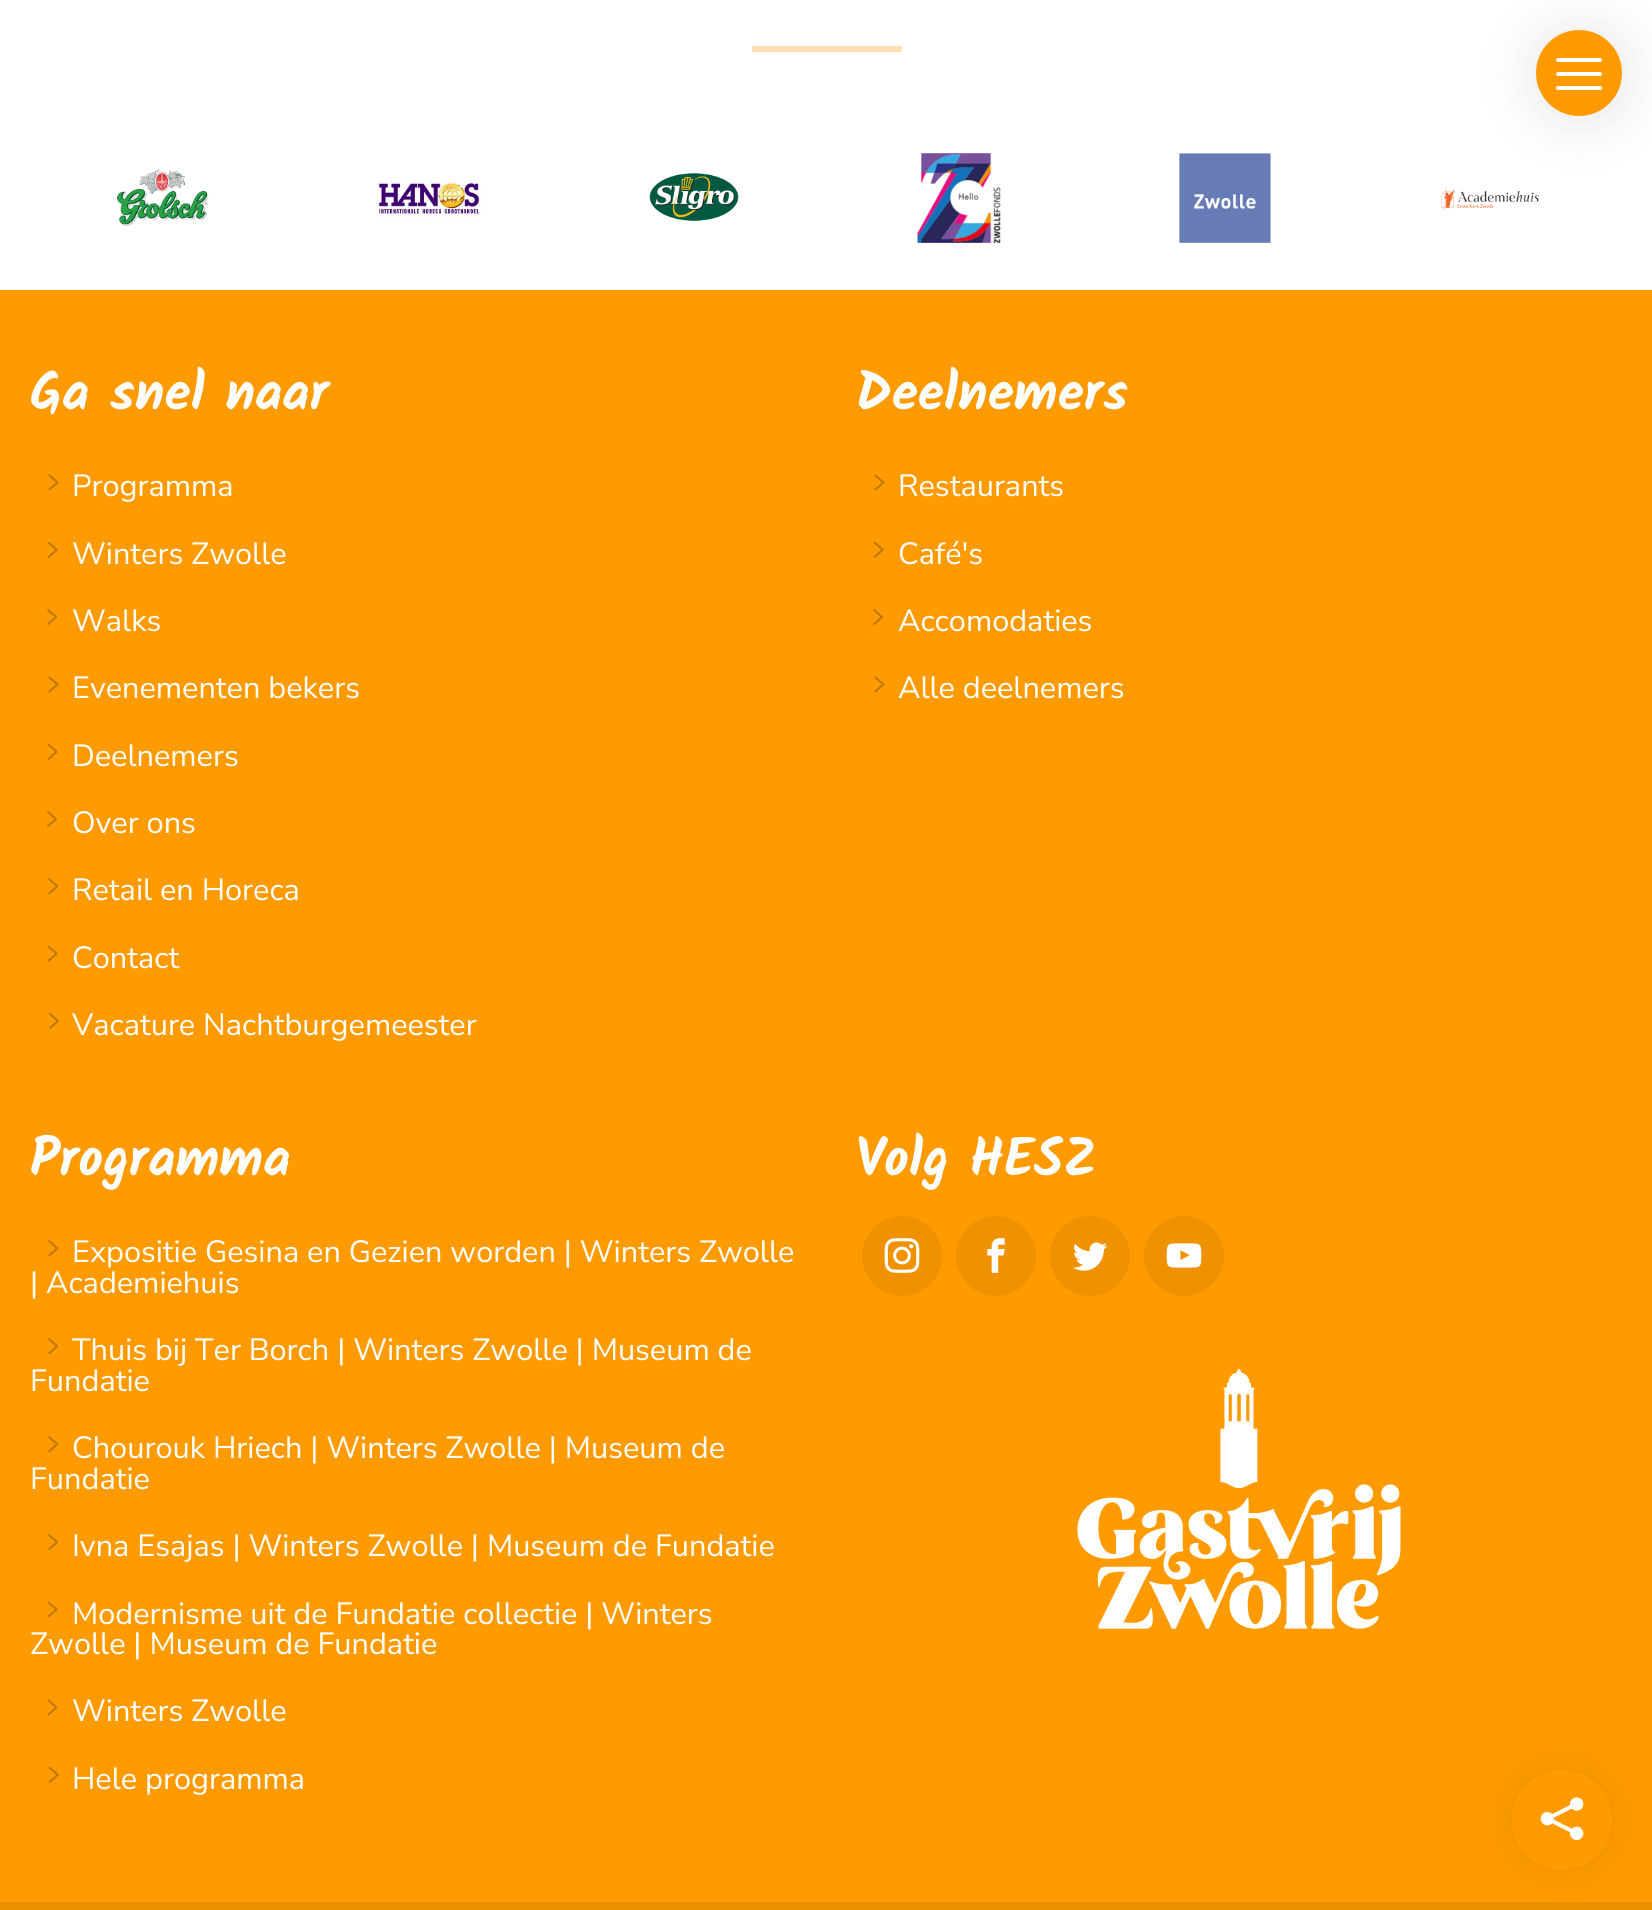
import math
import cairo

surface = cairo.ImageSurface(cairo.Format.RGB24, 1652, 1910)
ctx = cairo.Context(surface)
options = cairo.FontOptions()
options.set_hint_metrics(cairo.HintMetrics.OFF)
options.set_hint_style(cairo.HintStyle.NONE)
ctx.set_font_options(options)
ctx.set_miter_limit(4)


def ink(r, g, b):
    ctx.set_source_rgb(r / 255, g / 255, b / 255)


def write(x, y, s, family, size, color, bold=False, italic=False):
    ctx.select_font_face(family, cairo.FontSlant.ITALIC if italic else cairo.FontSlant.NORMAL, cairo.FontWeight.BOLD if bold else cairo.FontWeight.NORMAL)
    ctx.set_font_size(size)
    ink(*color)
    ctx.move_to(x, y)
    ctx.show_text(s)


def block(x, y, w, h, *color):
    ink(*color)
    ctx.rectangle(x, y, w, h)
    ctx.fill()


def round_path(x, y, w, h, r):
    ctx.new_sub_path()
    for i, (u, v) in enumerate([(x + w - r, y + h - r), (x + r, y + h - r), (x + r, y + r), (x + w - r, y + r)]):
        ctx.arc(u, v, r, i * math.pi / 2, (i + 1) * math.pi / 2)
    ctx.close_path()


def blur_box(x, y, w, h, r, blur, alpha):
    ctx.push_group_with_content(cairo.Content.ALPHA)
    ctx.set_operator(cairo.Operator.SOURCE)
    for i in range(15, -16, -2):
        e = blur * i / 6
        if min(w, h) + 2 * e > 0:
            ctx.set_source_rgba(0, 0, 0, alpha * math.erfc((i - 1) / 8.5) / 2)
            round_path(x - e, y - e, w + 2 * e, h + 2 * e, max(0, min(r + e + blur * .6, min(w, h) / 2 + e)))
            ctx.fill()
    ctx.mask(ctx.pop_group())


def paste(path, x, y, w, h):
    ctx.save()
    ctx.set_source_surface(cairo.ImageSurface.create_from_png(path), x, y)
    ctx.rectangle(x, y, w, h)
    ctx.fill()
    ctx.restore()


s1 = dict(family="Kalam", size=53.5, color=(255, 255, 255), bold=True)
s2 = dict(family="Nunito Sans", size=30.7, color=(255, 255, 255))

ink(255, 255, 255)
ctx.paint()
block(752, 46, 150, 6, 255, 225, 179)
paste("pic1.png", 117, 169, 92, 57)
paste("pic2.png", 376, 179, 106, 39)
paste("pic3.png", 649, 173, 90, 48)
paste("pic4.png", 917, 153, 84, 90)
paste("pic5.png", 1179, 153, 92, 90)
paste("pic6.png", 1441, 187, 98, 23)
ink(0, 0, 0)
blur_box(1538, 32, 86, 86, 43, 30, 0.1)
ink(255, 155, 0)
ctx.arc(1579, 73, 43, 0, 2 * math.pi)
ctx.fill()
ink(255, 255, 255)
round_path(1556, 72, 46, 4, 2)
ctx.fill()
round_path(1556, 58, 46, 4, 2)
ctx.fill()
round_path(1556, 86, 46, 4, 2)
ctx.fill()
block(0, 290, 1652, 1612, 255, 155, 0)
write(30, 410, "Ga snel naar", **s1)
paste("pic7.png", 48, 474, 11, 17)
write(72, 496, "Programma", **s2)
paste("pic8.png", 47, 541, 11, 17)
write(72, 564, "Winters Zwolle", **s2)
paste("pic9.png", 47, 609, 10, 16)
write(72, 631, "Walks", **s2)
paste("pic10.png", 48, 676, 11, 17)
write(72, 698, "Evenementen bekers", **s2)
paste("pic11.png", 47, 743, 11, 17)
write(72, 766, "Deelnemers", **s2)
paste("pic12.png", 47, 811, 10, 16)
write(72, 833, "Over ons", **s2)
paste("pic13.png", 48, 878, 11, 17)
write(72, 900, "Retail en Horeca", **s2)
paste("pic14.png", 47, 945, 11, 17)
write(72, 968, "Contact", **s2)
paste("pic15.png", 49, 1013, 10, 16)
write(72, 1035, "Vacature Nachtburgemeester", **s2)
write(856, 410, "Deelnemers", **s1)
paste("pic7.png", 874, 474, 11, 17)
write(898, 496, "Restaurants", **s2)
paste("pic8.png", 873, 541, 11, 17)
write(898, 564, "Café's", **s2)
paste("pic9.png", 873, 609, 10, 16)
write(898, 631, "Accomodaties", **s2)
paste("pic10.png", 874, 676, 11, 17)
write(898, 698, "Alle deelnemers", **s2)
write(30, 1176, "Programma", **s1)
paste("pic16.png", 48, 1240, 11, 17)
write(72, 1262, "Expositie Gesina en Gezien worden | Winters Zwolle", **s2)
write(30, 1293, "| Academiehuis", **s2)
paste("pic17.png", 48, 1338, 11, 17)
write(72, 1360, "Thuis bij Ter Borch | Winters Zwolle | Museum de", **s2)
write(30, 1391, "Fundatie", **s2)
paste("pic18.png", 48, 1436, 11, 17)
write(72, 1458, "Chourouk Hriech | Winters Zwolle | Museum de", **s2)
write(30, 1489, "Fundatie", **s2)
paste("pic19.png", 48, 1534, 11, 17)
write(72, 1556, "Ivna Esajas | Winters Zwolle | Museum de Fundatie", **s2)
paste("pic20.png", 47, 1601, 11, 17)
write(72, 1624, "Modernisme uit de Fundatie collectie | Winters", **s2)
write(30, 1654, "Zwolle | Museum de Fundatie", **s2)
paste("pic7.png", 47, 1699, 11, 17)
write(72, 1721, "Winters Zwolle", **s2)
paste("pic8.png", 48, 1766, 11, 17)
write(72, 1789, "Hele programma", **s2)
write(856, 1176, "Volg HESZ", **s1)
ink(240, 146, 0)
ctx.new_path()
ctx.arc(902, 1256, 40, 0, 2 * math.pi)
ctx.fill()
paste("pic21.png", 884, 1238, 36, 35)
ctx.arc(996, 1256, 40, 0, 2 * math.pi)
ctx.fill()
paste("pic22.png", 987, 1238, 18, 35)
ctx.arc(1090, 1256, 40, 0, 2 * math.pi)
ctx.fill()
paste("pic23.png", 1072, 1242, 36, 29)
ctx.arc(1184, 1256, 40, 0, 2 * math.pi)
ctx.fill()
paste("pic24.png", 1166, 1243, 36, 25)
paste("pic25.png", 1077, 1368, 324, 261)
block(0, 1902, 1652, 8, 235, 143, 0)
ink(0, 0, 0)
blur_box(1512, 1770, 100, 100, 50, 19, 0.08)
ink(255, 155, 0)
ctx.arc(1562, 1820, 50, 0, 2 * math.pi)
ctx.fill()
paste("pic26.png", 1540, 1797, 44, 43)
surface.write_to_png("screenshot.png")
